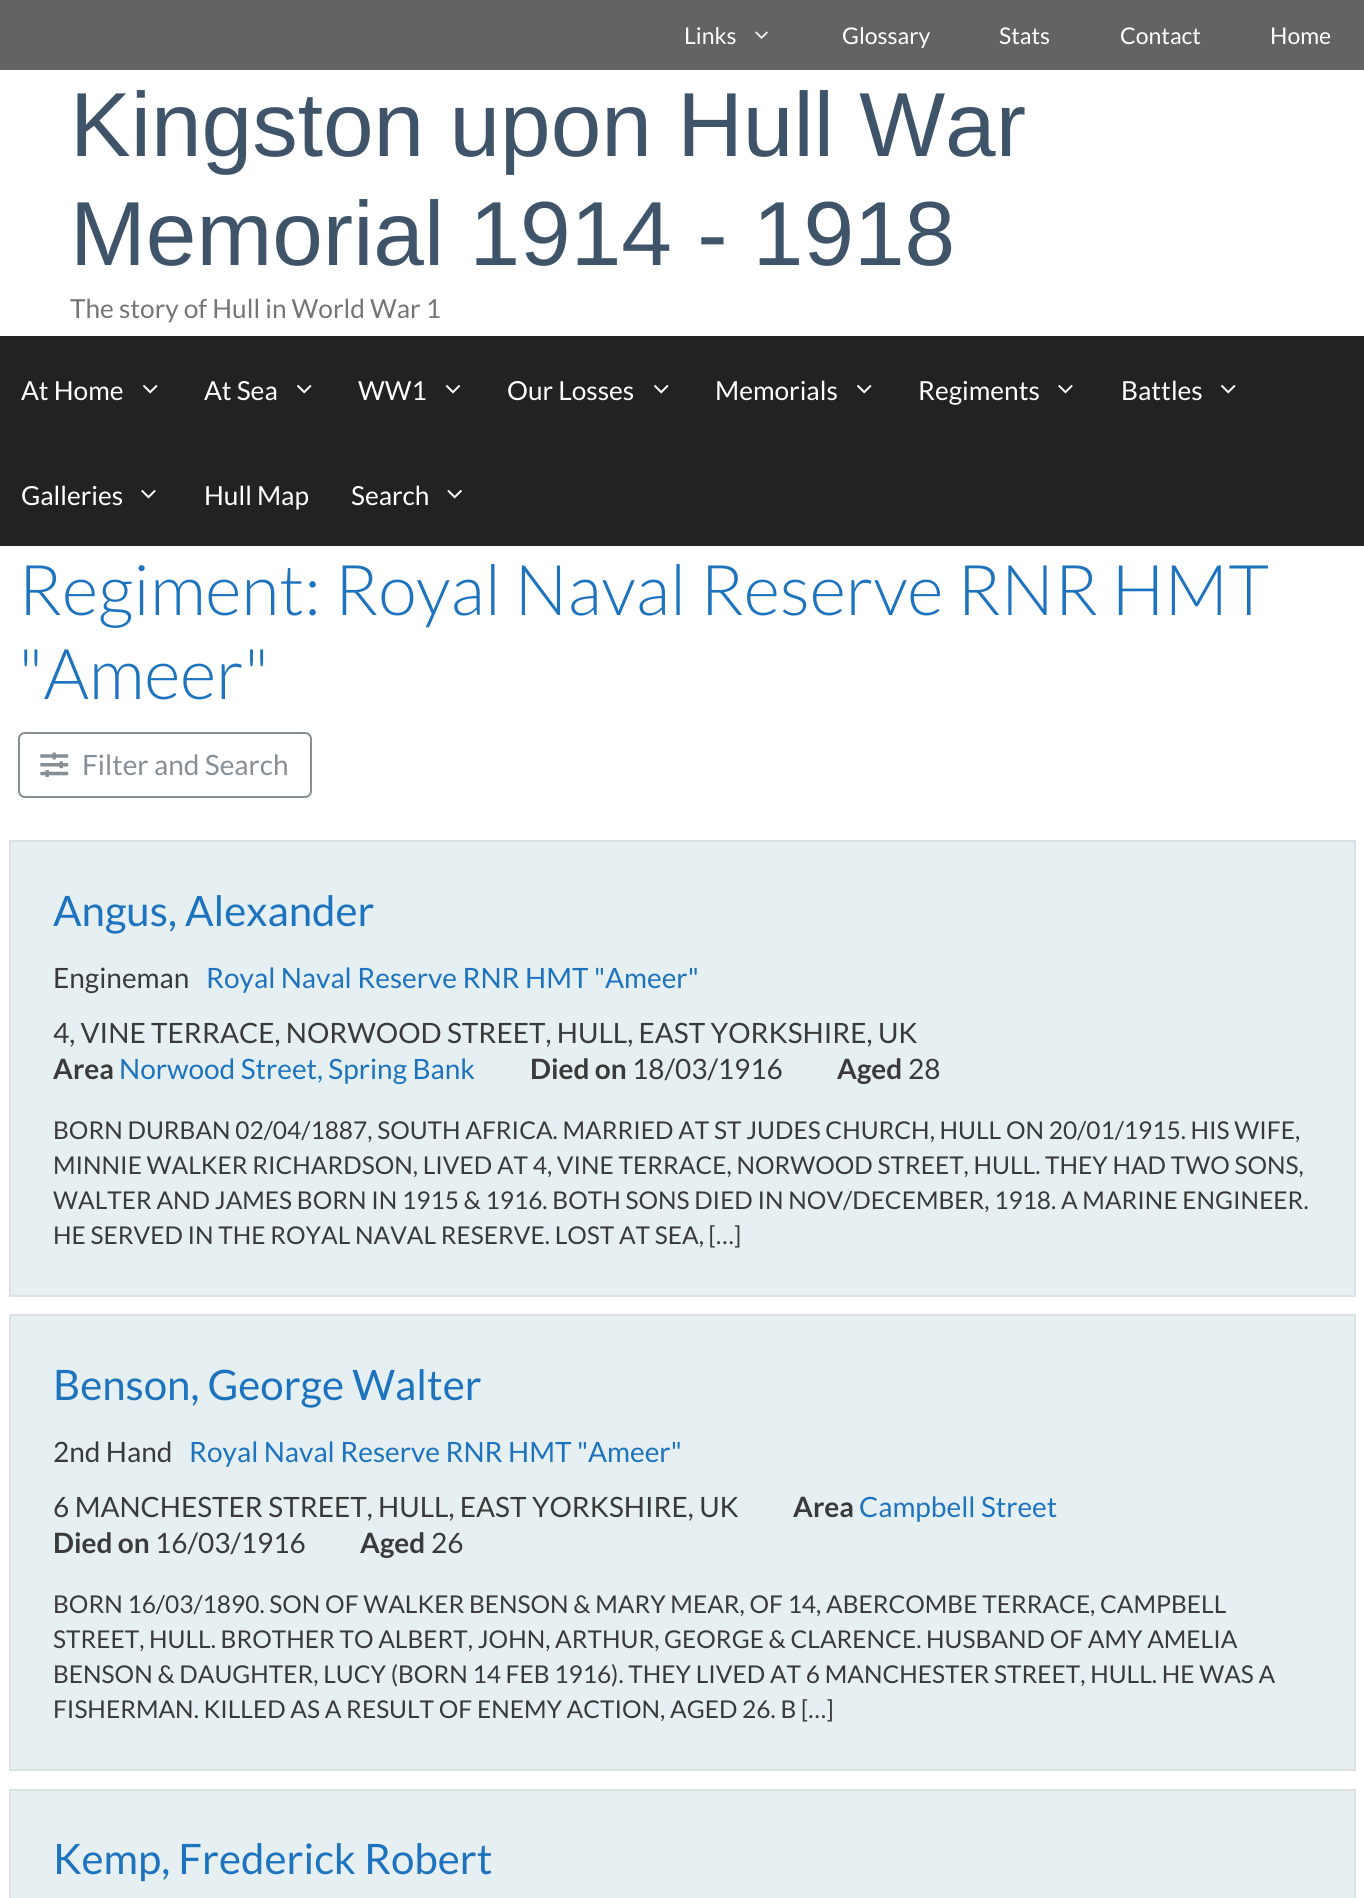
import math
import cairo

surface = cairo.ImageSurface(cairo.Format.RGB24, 1364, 1898)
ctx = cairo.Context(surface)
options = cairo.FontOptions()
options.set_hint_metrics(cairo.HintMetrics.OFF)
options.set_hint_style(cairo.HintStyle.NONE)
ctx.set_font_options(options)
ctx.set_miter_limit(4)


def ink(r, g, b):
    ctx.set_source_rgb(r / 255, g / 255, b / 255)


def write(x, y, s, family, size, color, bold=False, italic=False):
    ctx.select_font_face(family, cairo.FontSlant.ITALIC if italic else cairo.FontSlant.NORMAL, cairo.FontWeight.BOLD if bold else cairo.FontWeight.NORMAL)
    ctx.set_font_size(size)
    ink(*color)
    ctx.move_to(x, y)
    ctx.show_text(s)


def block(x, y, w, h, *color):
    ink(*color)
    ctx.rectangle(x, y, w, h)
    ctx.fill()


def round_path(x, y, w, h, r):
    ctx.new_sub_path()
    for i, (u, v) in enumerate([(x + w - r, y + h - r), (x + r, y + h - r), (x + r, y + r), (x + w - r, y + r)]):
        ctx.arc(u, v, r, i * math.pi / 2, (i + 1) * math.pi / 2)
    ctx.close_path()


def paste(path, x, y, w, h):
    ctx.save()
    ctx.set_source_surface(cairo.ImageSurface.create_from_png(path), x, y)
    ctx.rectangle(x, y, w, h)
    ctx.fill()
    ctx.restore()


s1 = dict(family="Lato", size=23, color=(255, 255, 255))
s2 = dict(family="Liberation Sans", size=91, color=(63, 84, 105))
s3 = dict(family="Lato", size=26.25, color=(117, 117, 117))
s4 = dict(family="Lato", size=26.25, color=(255, 255, 255))
s5 = dict(family="Lato Light", size=70, color=(30, 115, 190))
s6 = dict(family="Lato", size=28, color=(134, 142, 150))
s7 = dict(family="Lato", size=42, color=(30, 115, 190))
s8 = dict(family="Lato", size=28, color=(58, 58, 58))
s9 = dict(family="Lato", size=28, color=(30, 115, 190))
s10 = dict(family="Lato", size=28, color=(58, 58, 58), bold=True)
s11 = dict(family="Lato", size=24.5, color=(58, 58, 58))

ink(99, 99, 99)
ctx.paint()
write(684, 44, "Links", **s1)
paste("pic1.png", 755, 31, 13, 8)
write(842, 44, "Glossary", **s1)
write(999, 44, "Stats", **s1)
write(1120, 44, "Contact", **s1)
write(1270, 44, "Home", **s1)
block(0, 70, 1364, 266, 255, 255, 255)
write(70, 156, "Kingston upon Hull War", **s2)
write(70, 265, "Memorial 1914 - 1918", **s2)
write(70, 318, "The story of Hull in World War 1", **s3)
block(0, 336, 1364, 210, 34, 34, 34)
write(21, 400, "At Home", **s4)
paste("pic2.png", 143, 384, 15, 10)
write(204, 400, "At Sea", **s4)
paste("pic2.png", 297, 384, 15, 10)
write(358, 400, "WW1", **s4)
paste("pic3.png", 445, 385, 16, 9)
write(507, 400, "Our Losses", **s4)
paste("pic2.png", 654, 384, 15, 10)
write(715, 400, "Memorials", **s4)
paste("pic2.png", 857, 384, 15, 10)
write(918, 400, "Regiments", **s4)
paste("pic4.png", 1058, 384, 15, 10)
write(1121, 400, "Battles", **s4)
paste("pic2.png", 1221, 384, 15, 10)
write(21, 505, "Galleries", **s4)
paste("pic4.png", 141, 489, 15, 10)
write(204, 505, "Hull Map", **s4)
write(351, 505, "Search", **s4)
paste("pic5.png", 447, 489, 15, 10)
block(0, 546, 1364, 1352, 255, 255, 255)
write(18, 615, "Regiment: Royal Naval Reserve RNR HMT", **s5)
write(18, 699, "\"Ameer\"", **s5)
round_path(19, 733, 292, 64, 6)
ink(134, 142, 150)
ctx.stroke()
paste("pic6.png", 40, 752, 29, 25)
write(82, 775, "Filter and Search", **s6)
ink(230, 240, 242)
ctx.rectangle(10, 841, 1345, 455)
ctx.fill_preserve()
ink(221, 225, 227)
ctx.stroke()
write(53, 926, "Angus, Alexander", **s7)
write(53, 988, "Engineman", **s8)
write(206, 988, "Royal Naval Reserve RNR HMT \"Ameer\"", **s9)
write(53, 1043, "4, VINE TERRACE, NORWOOD STREET, HULL, EAST YORKSHIRE, UK", **s8)
write(53, 1079, "Area", **s10)
write(119, 1079, "Norwood Street, Spring Bank", **s9)
write(530, 1079, "Died on", **s10)
write(632, 1079, "18/03/1916", **s8)
write(837, 1079, "Aged", **s10)
write(908, 1079, "28", **s8)
write(53, 1139, "BORN DURBAN 02/04/1887, SOUTH AFRICA. MARRIED AT ST JUDES CHURCH, HULL ON 20/01/1915. HIS WIFE,", **s11)
write(53, 1174, "MINNIE WALKER RICHARDSON, LIVED AT 4, VINE TERRACE, NORWOOD STREET, HULL. THEY HAD TWO SONS,", **s11)
write(53, 1209, "WALTER AND JAMES BORN IN 1915 & 1916. BOTH SONS DIED IN NOV/DECEMBER, 1918. A MARINE ENGINEER.", **s11)
write(53, 1244, "HE SERVED IN THE ROYAL NAVAL RESERVE. LOST AT SEA, […]", **s11)
ink(230, 240, 242)
ctx.rectangle(10, 1315, 1345, 455)
ctx.fill_preserve()
ink(221, 225, 227)
ctx.stroke()
write(53, 1400, "Benson, George Walter", **s7)
write(53, 1462, "2nd Hand", **s8)
write(189, 1462, "Royal Naval Reserve RNR HMT \"Ameer\"", **s9)
write(53, 1517, "6 MANCHESTER STREET, HULL, EAST YORKSHIRE, UK", **s8)
write(793, 1517, "Area", **s10)
write(859, 1517, "Campbell Street", **s9)
write(53, 1553, "Died on", **s10)
write(155, 1553, "16/03/1916", **s8)
write(360, 1553, "Aged", **s10)
write(431, 1553, "26", **s8)
write(53, 1613, "BORN 16/03/1890. SON OF WALKER BENSON & MARY MEAR, OF 14, ABERCOMBE TERRACE, CAMPBELL", **s11)
write(53, 1648, "STREET, HULL. BROTHER TO ALBERT, JOHN, ARTHUR, GEORGE & CLARENCE. HUSBAND OF AMY AMELIA", **s11)
write(53, 1683, "BENSON & DAUGHTER, LUCY (BORN 14 FEB 1916). THEY LIVED AT 6 MANCHESTER STREET, HULL. HE WAS A", **s11)
write(53, 1718, "FISHERMAN. KILLED AS A RESULT OF ENEMY ACTION, AGED 26. B […]", **s11)
ink(230, 240, 242)
ctx.rectangle(10, 1790, 1345, 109)
ctx.fill_preserve()
ink(221, 225, 227)
ctx.stroke()
write(53, 1874, "Kemp, Frederick Robert", **s7)
surface.write_to_png("screenshot.png")
